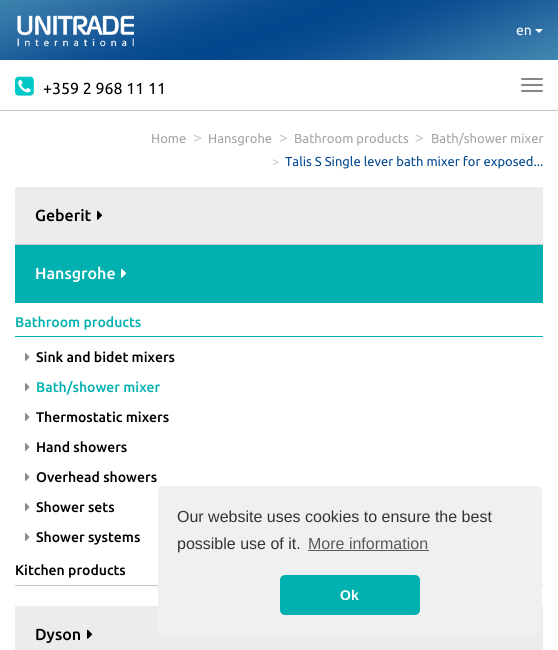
import math
import cairo

surface = cairo.ImageSurface(cairo.Format.RGB24, 558, 650)
ctx = cairo.Context(surface)
options = cairo.FontOptions()
options.set_hint_metrics(cairo.HintMetrics.OFF)
options.set_hint_style(cairo.HintStyle.NONE)
ctx.set_font_options(options)
ctx.set_miter_limit(4)


def ink(r, g, b):
    ctx.set_source_rgb(r / 255, g / 255, b / 255)


def write(x, y, s, family, size, color, bold=False, italic=False):
    ctx.select_font_face(family, cairo.FontSlant.ITALIC if italic else cairo.FontSlant.NORMAL, cairo.FontWeight.BOLD if bold else cairo.FontWeight.NORMAL)
    ctx.set_font_size(size)
    ink(*color)
    ctx.move_to(x, y)
    ctx.show_text(s)


def block(x, y, w, h, *color):
    ink(*color)
    ctx.rectangle(x, y, w, h)
    ctx.fill()


def round_path(x, y, w, h, r):
    ctx.new_sub_path()
    for i, (u, v) in enumerate([(x + w - r, y + h - r), (x + r, y + h - r), (x + r, y + r), (x + w - r, y + r)]):
        ctx.arc(u, v, r, i * math.pi / 2, (i + 1) * math.pi / 2)
    ctx.close_path()


def paste(path, x, y, w, h):
    ctx.save()
    ctx.set_source_surface(cairo.ImageSurface.create_from_png(path), x, y)
    ctx.rectangle(x, y, w, h)
    ctx.fill()
    ctx.restore()


s1 = dict(family="Ubuntu", size=14, color=(255, 255, 255))
s2 = dict(family="Ubuntu", size=16, color=(0, 0, 0))
s3 = dict(family="Ubuntu", size=13, color=(163, 163, 163))
s4 = dict(family="Ubuntu", size=16, color=(204, 204, 204))
s5 = dict(family="Ubuntu", size=13, color=(204, 204, 204))
s6 = dict(family="Ubuntu", size=13, color=(2, 72, 142))
s7 = dict(family="Ubuntu Medium", size=16, color=(0, 0, 0))
s8 = dict(family="Ubuntu Medium", size=16, color=(255, 255, 255))
s9 = dict(family="Ubuntu Medium", size=14, color=(1, 177, 175))
s10 = dict(family="Ubuntu Medium", size=14, color=(0, 0, 0))
s11 = dict(family="Liberation Sans", size=16, color=(51, 51, 51))
s12 = dict(family="Liberation Sans", size=16, color=(89, 89, 89))
s13 = dict(family="Liberation Sans", size=14, color=(255, 255, 255), bold=True)

ink(255, 255, 255)
ctx.paint()
paste("pic1.png", 0, 0, 558, 60)
paste("pic2.png", 17, 15, 117, 32)
write(516, 35, "en", **s1)
ctx.new_path()
ctx.move_to(535, 29)
ctx.line_to(543, 29)
ctx.line_to(539, 33)
ctx.close_path()
ctx.fill()
block(0, 110, 558, 1, 197, 197, 197)
paste("pic3.png", 15, 76, 19, 20)
write(43, 94, "+359 2 968 11 11", **s2)
ink(136, 136, 136)
round_path(521, 78, 22, 2, 1)
ctx.fill()
round_path(521, 84, 22, 2, 1)
ctx.fill()
round_path(521, 90, 22, 2, 1)
ctx.fill()
write(151, 143, "Home", **s3)
write(193, 143, ">", **s4)
write(208, 143, "Hansgrohe", **s3)
write(279, 143, ">", **s4)
write(294, 143, "Bathroom products", **s3)
write(415, 143, ">", **s4)
write(431, 143, "Bath/shower mixer", **s3)
write(272, 166, ">", **s5)
write(285, 166, "Talis S Single lever bath mixer for exposed...", **s6)
block(15, 187, 528, 57, 236, 236, 236)
block(15, 244, 528, 1, 197, 197, 197)
write(35, 221, "Geberit", **s7)
paste("pic4.png", 97, 210, 6, 10)
block(15, 245, 528, 58, 1, 177, 175)
write(35, 279, "Hansgrohe", **s8)
paste("pic5.png", 121, 268, 6, 10)
block(15, 336, 528, 1, 1, 177, 175)
write(15, 327, "Bathroom products", **s9)
paste("pic6.png", 25, 353, 5, 8)
write(36, 362, "Sink and bidet mixers", **s10)
paste("pic6.png", 25, 383, 5, 8)
write(36, 392, "Bath/shower mixer", **s9)
paste("pic6.png", 25, 413, 5, 8)
write(36, 422, "Thermostatic mixers", **s10)
paste("pic6.png", 25, 443, 5, 8)
write(36, 452, "Hand showers", **s10)
paste("pic6.png", 25, 473, 5, 8)
write(36, 482, "Overhead showers", **s10)
paste("pic6.png", 25, 503, 5, 8)
write(36, 512, "Shower sets", **s10)
paste("pic6.png", 25, 533, 5, 8)
write(36, 542, "Shower systems", **s10)
block(15, 585, 528, 1, 197, 197, 197)
write(15, 575, "Kitchen products", **s10)
block(15, 606, 528, 44, 236, 236, 236)
write(35, 640, "Dyson", **s7)
paste("pic4.png", 87, 629, 6, 10)
ink(240, 240, 240)
round_path(158, 486, 384, 148, 5)
ctx.fill()
write(177, 522, "Our website uses cookies to ensure the best", **s11)
write(177, 549, "possible use of it.", **s11)
write(308, 549, "More information", **s12)
block(308, 550, 121, 1, 89, 89, 89)
ink(1, 177, 175)
round_path(280, 575, 140, 40, 5)
ctx.fill()
write(340, 600, "Ok", **s13)
surface.write_to_png("screenshot.png")
